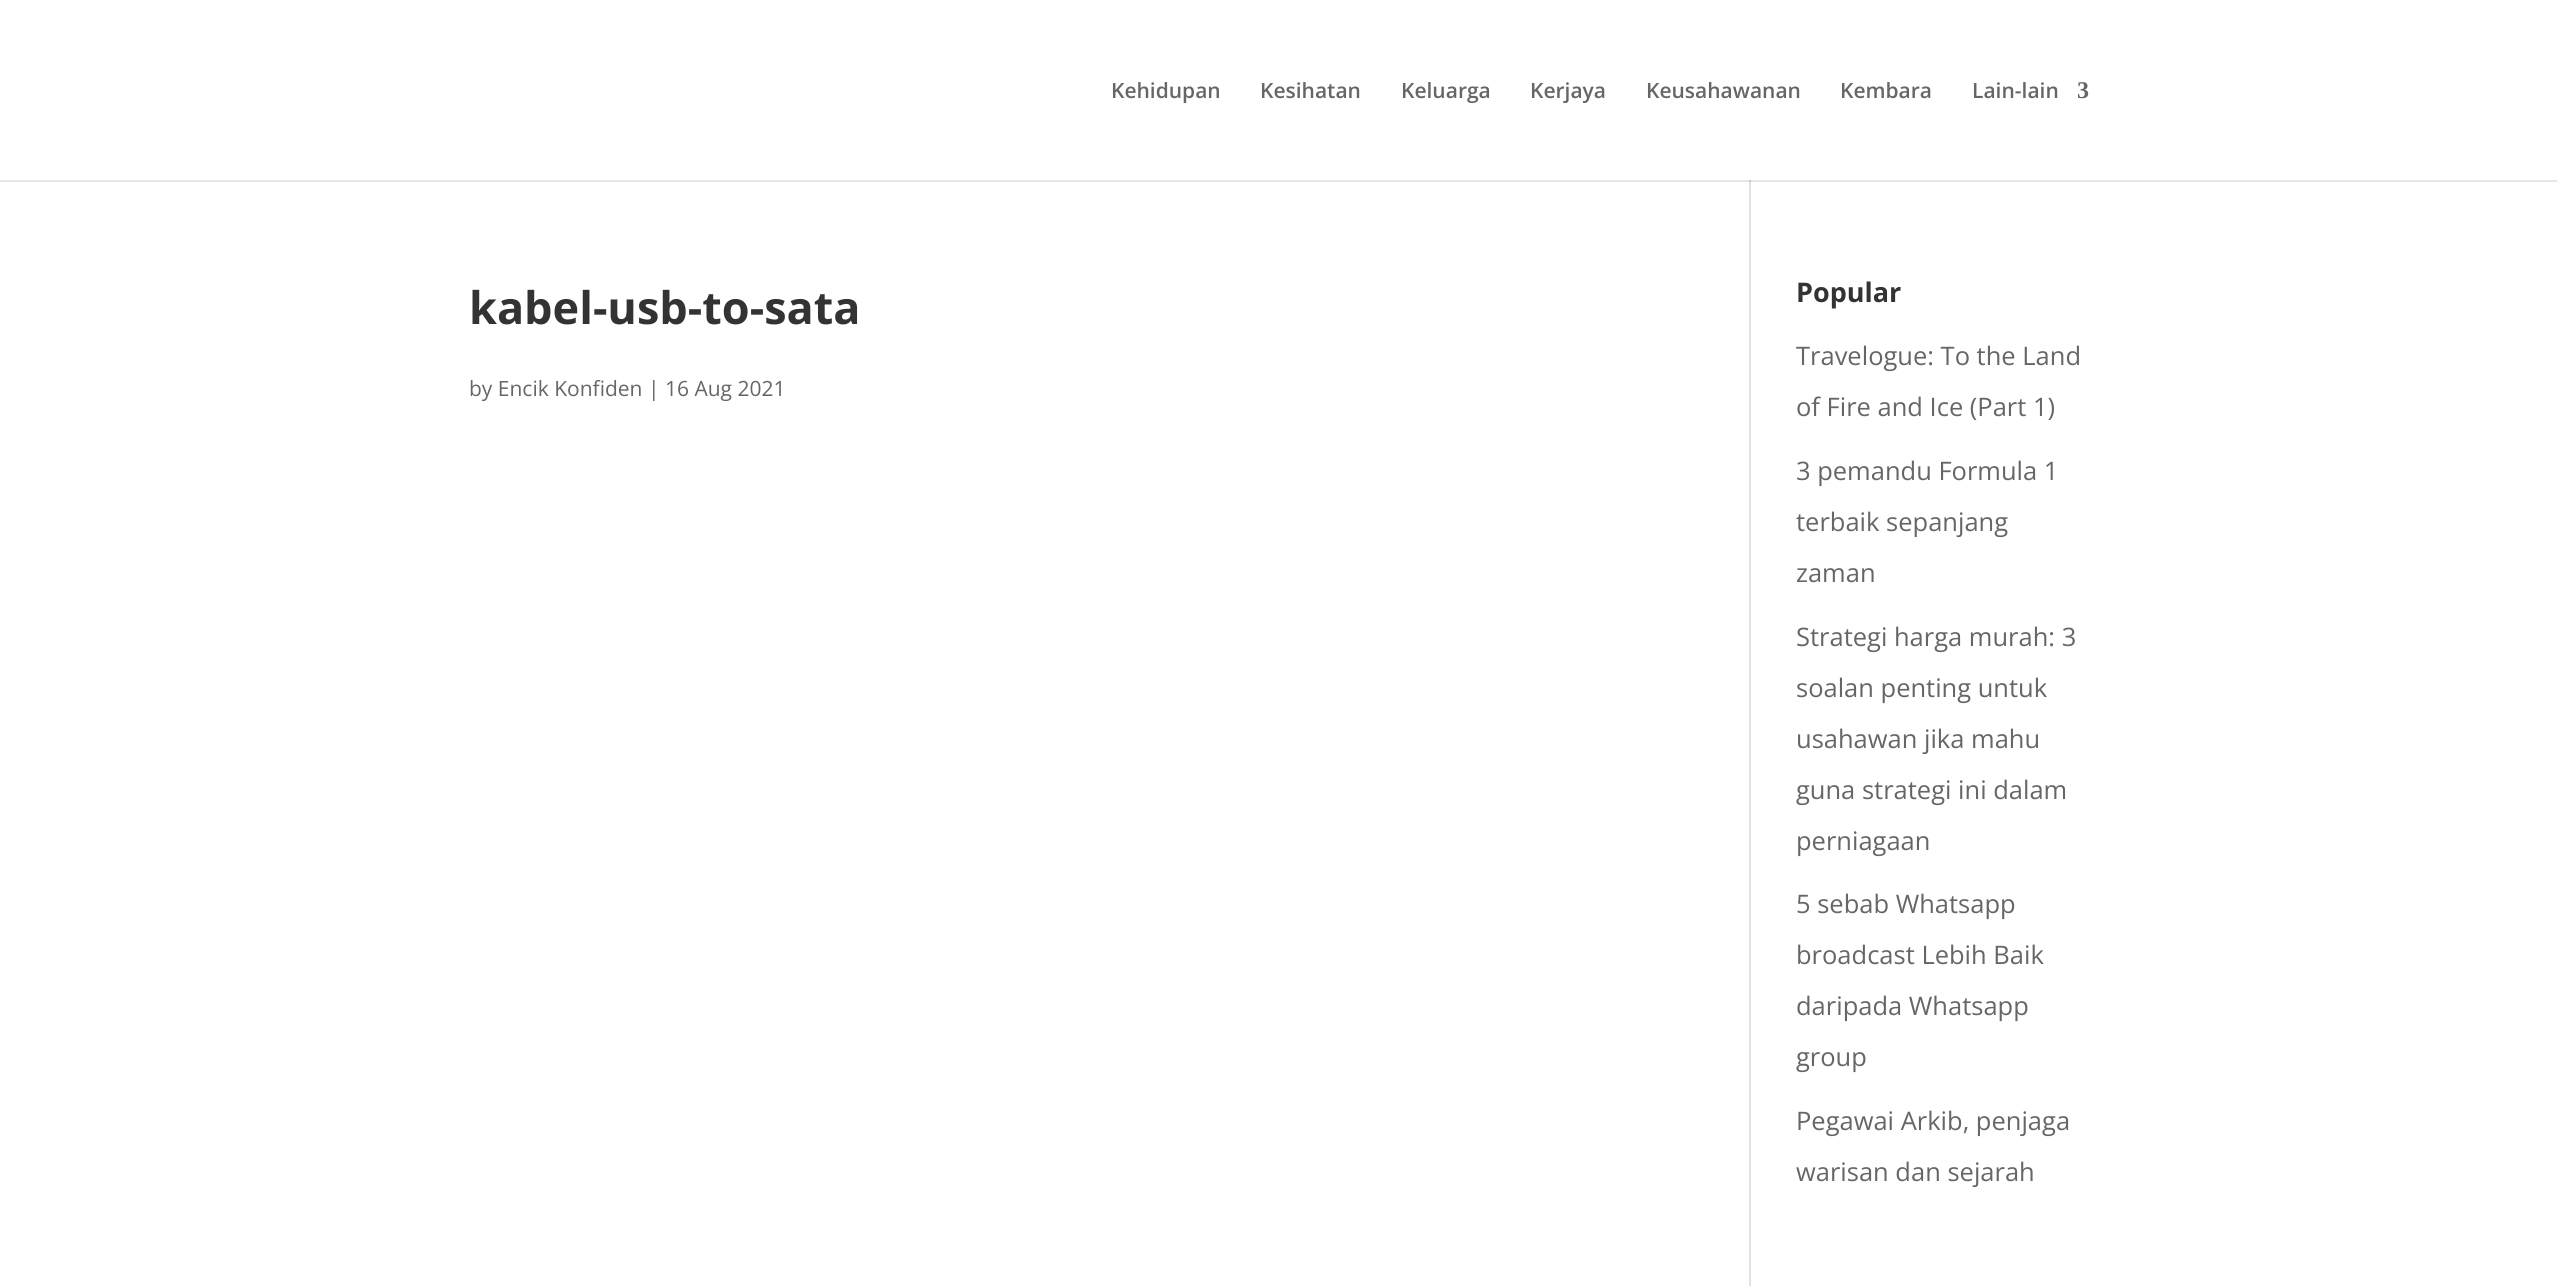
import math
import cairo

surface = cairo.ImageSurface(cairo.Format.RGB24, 2557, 1286)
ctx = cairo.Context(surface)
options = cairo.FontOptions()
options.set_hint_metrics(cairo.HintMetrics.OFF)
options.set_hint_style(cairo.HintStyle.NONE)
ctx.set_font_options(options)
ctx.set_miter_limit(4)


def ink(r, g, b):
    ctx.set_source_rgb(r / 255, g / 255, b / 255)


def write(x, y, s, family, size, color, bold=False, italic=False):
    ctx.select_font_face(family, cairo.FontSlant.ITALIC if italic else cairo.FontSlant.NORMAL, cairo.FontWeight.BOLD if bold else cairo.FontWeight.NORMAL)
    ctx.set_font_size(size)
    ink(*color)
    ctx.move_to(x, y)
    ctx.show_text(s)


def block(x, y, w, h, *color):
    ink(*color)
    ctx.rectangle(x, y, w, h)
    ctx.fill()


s1 = dict(family="Open Sans SemiBold", size=21, color=(102, 102, 102))
s2 = dict(family="Liberation Serif", size=24, color=(102, 102, 102), bold=True)
s3 = dict(family="Open Sans", size=45, color=(51, 51, 51), bold=True)
s4 = dict(family="Open Sans", size=21, color=(102, 102, 102))
s5 = dict(family="Open Sans", size=27, color=(51, 51, 51), bold=True)
s6 = dict(family="Open Sans", size=25.5, color=(102, 102, 102))

ink(255, 255, 255)
ctx.paint()
block(1749, 180, 2, 1106, 226, 226, 226)
ctx.set_source_rgba(0, 0, 0, 0.1)
ctx.new_path()
ctx.move_to(0, 180)
ctx.line_to(0, 182)
ctx.line_to(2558, 182)
ctx.line_to(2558, 2)
ctx.line_to(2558, 180)
ctx.close_path()
ctx.fill()
write(1111, 98, "Kehidupan", **s1)
write(1260, 98, "Kesihatan", **s1)
write(1401, 98, "Keluarga", **s1)
write(1530, 98, "Kerjaya", **s1)
write(1646, 98, "Keusahawanan", **s1)
write(1840, 98, "Kembara", **s1)
write(1972, 98, "Lain-lain", **s1)
write(2077, 98, "3", **s2)
write(469, 324, "kabel-usb-to-sata", **s3)
write(469, 396, "by Encik Konfiden | 16 Aug 2021", **s4)
write(1796, 302, "Popular", **s5)
write(1796, 365, "Travelogue: To the Land", **s6)
write(1796, 416, "of Fire and Ice (Part 1)", **s6)
write(1796, 480, "3 pemandu Formula 1", **s6)
write(1796, 531, "terbaik sepanjang", **s6)
write(1796, 582, "zaman", **s6)
write(1796, 646, "Strategi harga murah: 3", **s6)
write(1796, 697, "soalan penting untuk", **s6)
write(1796, 748, "usahawan jika mahu", **s6)
write(1796, 799, "guna strategi ini dalam", **s6)
write(1796, 850, "perniagaan", **s6)
write(1796, 913, "5 sebab Whatsapp", **s6)
write(1796, 964, "broadcast Lebih Baik", **s6)
write(1796, 1015, "daripada Whatsapp", **s6)
write(1796, 1066, "group", **s6)
write(1796, 1130, "Pegawai Arkib, penjaga", **s6)
write(1796, 1181, "warisan dan sejarah", **s6)
surface.write_to_png("screenshot.png")
